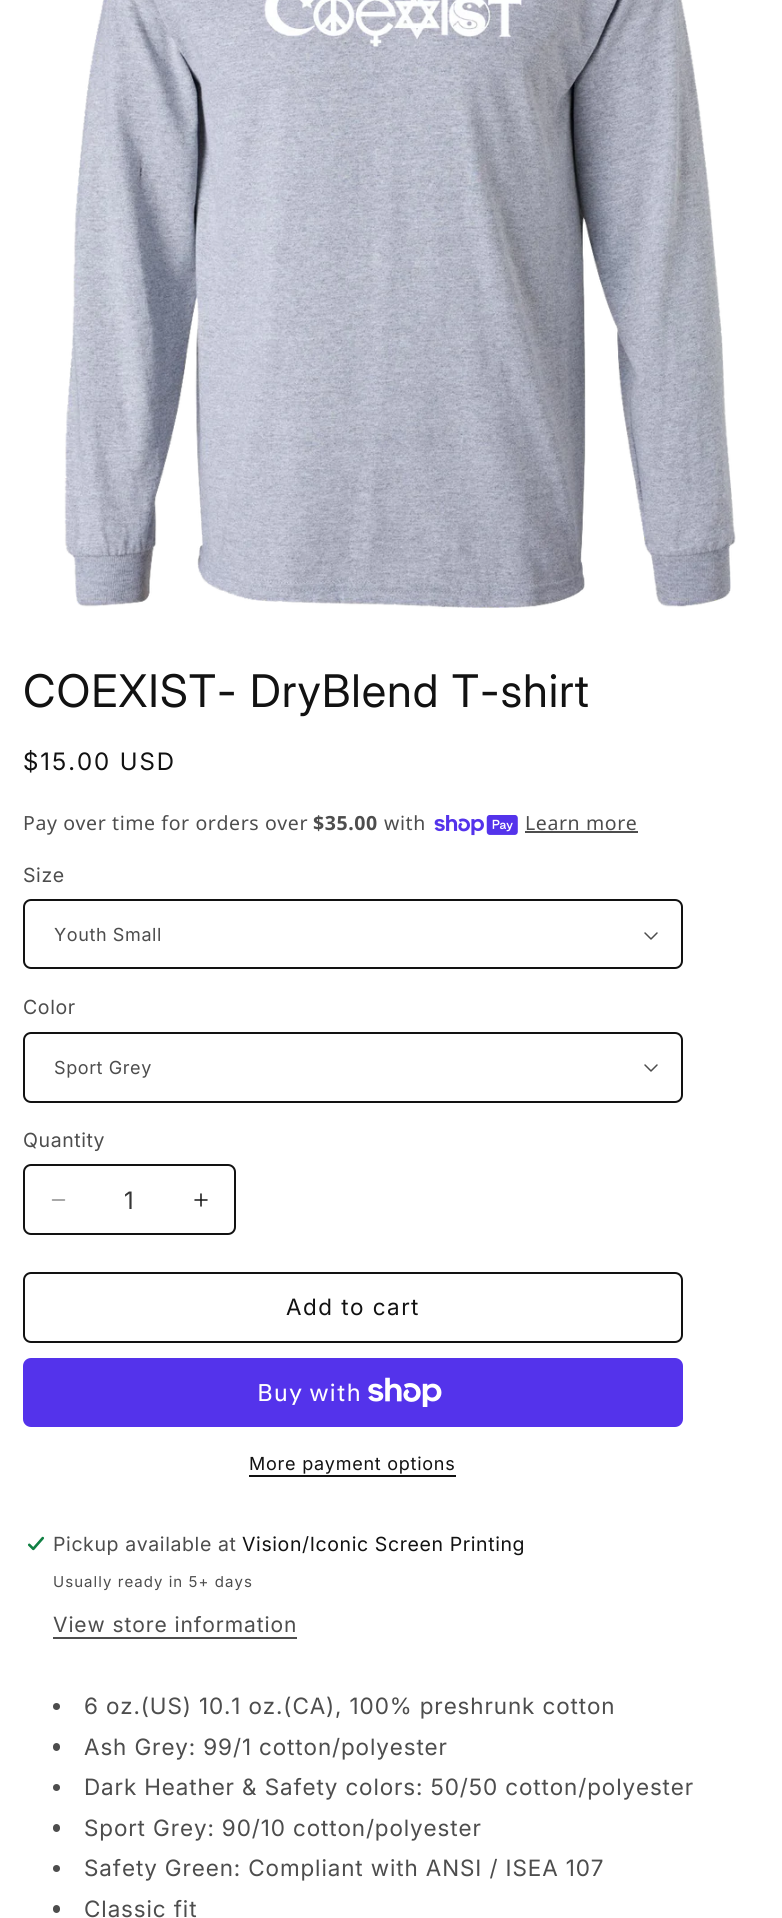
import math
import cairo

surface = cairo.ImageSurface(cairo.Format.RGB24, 782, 1918)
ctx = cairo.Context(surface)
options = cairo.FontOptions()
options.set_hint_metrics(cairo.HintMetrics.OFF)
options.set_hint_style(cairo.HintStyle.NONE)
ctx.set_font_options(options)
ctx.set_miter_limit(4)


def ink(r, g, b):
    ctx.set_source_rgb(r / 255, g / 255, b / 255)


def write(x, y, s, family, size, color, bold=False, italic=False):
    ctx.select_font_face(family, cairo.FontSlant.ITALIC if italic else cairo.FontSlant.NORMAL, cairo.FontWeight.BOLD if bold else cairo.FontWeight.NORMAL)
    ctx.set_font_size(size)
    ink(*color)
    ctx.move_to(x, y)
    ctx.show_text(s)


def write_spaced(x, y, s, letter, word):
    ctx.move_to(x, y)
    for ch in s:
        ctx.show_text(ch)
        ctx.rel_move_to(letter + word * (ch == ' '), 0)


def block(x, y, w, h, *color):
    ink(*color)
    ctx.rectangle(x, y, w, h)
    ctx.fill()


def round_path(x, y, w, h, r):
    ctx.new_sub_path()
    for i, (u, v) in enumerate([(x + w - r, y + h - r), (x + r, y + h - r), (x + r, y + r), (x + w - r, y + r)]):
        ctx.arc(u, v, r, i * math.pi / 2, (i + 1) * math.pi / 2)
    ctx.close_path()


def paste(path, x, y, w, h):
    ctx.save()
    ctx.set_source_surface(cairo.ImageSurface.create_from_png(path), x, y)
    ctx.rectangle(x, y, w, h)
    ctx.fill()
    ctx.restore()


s1 = dict(family="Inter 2", size=24, color=(54, 54, 54))

ink(255, 255, 255)
ctx.paint()
paste("pic1.png", 64, 0, 672, 609)
ctx.select_font_face("Inter")
ctx.set_font_size(45)
ink(18, 18, 18)
write_spaced(23, 707, "COEXIST- DryBlend T-shirt", 0.9, 0)
ctx.select_font_face("Inter 2")
ctx.set_font_size(24)
write_spaced(23, 770, "$15.00 USD", 2, 0)
ctx.select_font_face("Noto Sans")
ctx.set_font_size(19.5)
ink(77, 77, 77)
write_spaced(23, 830, "Pay over time for orders over", 0.6, 0)
ctx.select_font_face("Noto Sans", cairo.FontSlant.NORMAL, cairo.FontWeight.BOLD)
write_spaced(313, 830, "$35.00", 0.6, 0)
ctx.select_font_face("Noto Sans")
write_spaced(384, 830, "with", 0.6, 0)
paste("pic2.png", 434, 815, 84, 21)
write_spaced(525, 830, "Learn more", 0.6, 0)
block(525, 831, 113, 2, 77, 77, 77)
ctx.select_font_face("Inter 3")
write_spaced(23, 882, "Size", 0.6, 0)
paste("pic3.png", 644, 932, 14, 8)
round_path(24, 900, 658, 68, 7)
ink(18, 18, 18)
ctx.stroke()
ctx.set_font_size(18)
ink(77, 77, 77)
write_spaced(54, 941, "Youth Small", 0.6, 0)
ctx.set_font_size(19.5)
write_spaced(23, 1014, "Color", 0.6, 0)
paste("pic3.png", 644, 1064, 14, 8)
round_path(24, 1033, 658, 69, 7)
ink(18, 18, 18)
ctx.stroke()
ctx.set_font_size(18)
ink(77, 77, 77)
write_spaced(54, 1074, "Sport Grey", 0.6, 0)
ctx.set_font_size(19.5)
write_spaced(23, 1147, "Quantity", 0.6, 0)
paste("pic4.png", 51, 1199, 15, 2)
paste("pic5.png", 194, 1193, 14, 14)
round_path(24, 1165, 211, 69, 7)
ink(18, 18, 18)
ctx.stroke()
write(124, 1209, "1", **s1)
round_path(24, 1273, 658, 69, 7)
ink(18, 18, 18)
ctx.stroke()
ctx.select_font_face("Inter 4")
ctx.set_font_size(22.5)
write_spaced(286, 1315, "Add to cart", 1.5, 0)
ink(84, 51, 235)
round_path(23, 1358, 660, 69, 8)
ctx.fill()
ctx.select_font_face("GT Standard")
ctx.set_font_size(24)
ink(255, 255, 255)
write_spaced(257, 1401, "Buy with", 0.9, 0)
paste("pic6.png", 368, 1377, 74, 30)
ctx.select_font_face("Inter 3")
ctx.set_font_size(18)
ink(18, 18, 18)
write_spaced(249, 1470, "More payment options", 0.75, 0)
block(249, 1475, 207, 2, 18, 18, 18)
paste("pic7.png", 27, 1536, 18, 15)
ctx.set_font_size(19.5)
ink(77, 77, 77)
write_spaced(53, 1551, "Pickup available at", 0.6, 0)
ink(18, 18, 18)
write_spaced(242, 1551, "Vision/Iconic Screen Printing", 0.6, 0)
ctx.set_font_size(15)
ink(77, 77, 77)
write_spaced(53, 1587, "Usually ready in 5+ days", 1.05, 0)
ctx.set_font_size(21)
write_spaced(53, 1632, "View store information", 0.9, 0)
block(53, 1637, 244, 2, 77, 77, 77)
ctx.new_path()
ctx.arc(56.5, 1706.5, 3.5, 0, 2 * math.pi)
ctx.fill()
ctx.select_font_face("Inter 4")
ctx.set_font_size(22.5)
write_spaced(84, 1714, "6 oz.(US) 10.1 oz.(CA), 100% preshrunk cotton", 0.9, 0)
round_path(53, 1743, 7, 8, 3.5)
ctx.fill()
write_spaced(84, 1755, "Ash Grey: 99/1 cotton/polyester", 0.9, 0)
ctx.new_path()
ctx.arc(56.5, 1787.5, 3.5, 0, 2 * math.pi)
ctx.fill()
write_spaced(84, 1795, "Dark Heather & Safety colors: 50/50 cotton/polyester", 0.9, 0)
round_path(53, 1824, 7, 8, 3.5)
ctx.fill()
write_spaced(84, 1836, "Sport Grey: 90/10 cotton/polyester", 0.9, 0)
ctx.new_path()
ctx.arc(56.5, 1868.5, 3.5, 0, 2 * math.pi)
ctx.fill()
write_spaced(84, 1876, "Safety Green: Compliant with ANSI / ISEA 107", 0.9, 0)
round_path(53, 1905, 7, 8, 3.5)
ctx.fill()
write_spaced(84, 1917, "Classic fit", 0.9, 0)
surface.write_to_png("screenshot.png")
